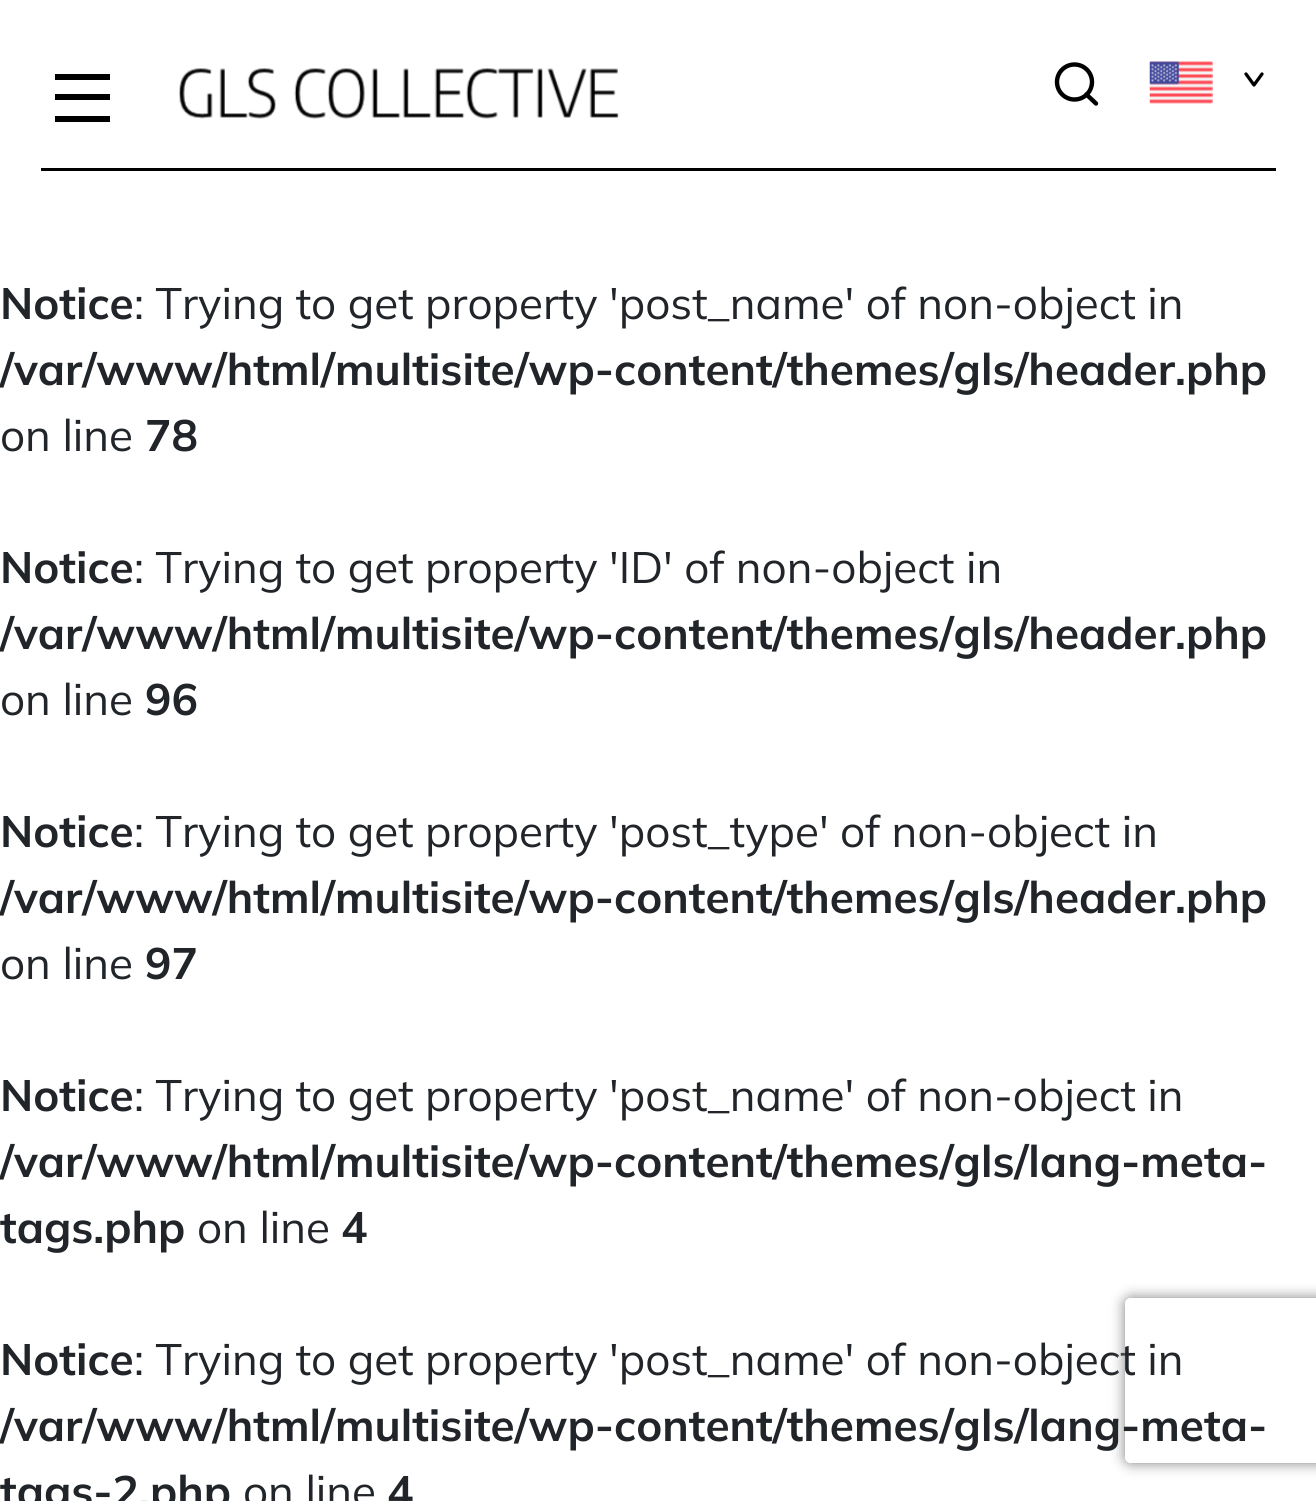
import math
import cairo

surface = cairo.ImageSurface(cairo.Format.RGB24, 1316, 1501)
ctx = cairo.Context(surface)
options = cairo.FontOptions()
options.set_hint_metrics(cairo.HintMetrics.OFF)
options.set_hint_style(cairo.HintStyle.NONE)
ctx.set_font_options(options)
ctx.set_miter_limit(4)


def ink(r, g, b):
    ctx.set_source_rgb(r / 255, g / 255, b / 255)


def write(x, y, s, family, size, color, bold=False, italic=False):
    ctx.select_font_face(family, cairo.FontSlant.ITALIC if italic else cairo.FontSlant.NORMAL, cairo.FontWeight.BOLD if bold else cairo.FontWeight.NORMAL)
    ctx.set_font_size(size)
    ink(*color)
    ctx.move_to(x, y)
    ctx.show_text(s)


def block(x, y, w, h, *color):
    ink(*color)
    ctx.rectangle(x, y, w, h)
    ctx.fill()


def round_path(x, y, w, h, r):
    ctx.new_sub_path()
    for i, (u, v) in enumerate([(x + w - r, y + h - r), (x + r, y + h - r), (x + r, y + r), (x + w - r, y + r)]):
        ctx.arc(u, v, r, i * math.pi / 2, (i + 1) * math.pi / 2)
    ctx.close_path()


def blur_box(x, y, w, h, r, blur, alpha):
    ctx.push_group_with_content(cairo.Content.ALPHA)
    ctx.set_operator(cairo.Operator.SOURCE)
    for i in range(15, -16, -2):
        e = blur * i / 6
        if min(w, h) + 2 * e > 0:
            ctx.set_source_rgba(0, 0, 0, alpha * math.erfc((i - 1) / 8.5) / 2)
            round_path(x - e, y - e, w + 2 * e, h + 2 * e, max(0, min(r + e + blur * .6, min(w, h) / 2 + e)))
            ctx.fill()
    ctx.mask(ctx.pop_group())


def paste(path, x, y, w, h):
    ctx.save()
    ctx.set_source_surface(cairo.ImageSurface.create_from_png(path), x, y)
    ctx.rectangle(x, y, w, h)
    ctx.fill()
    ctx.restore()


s1 = dict(family="Mulish", size=44, color=(33, 37, 41), bold=True)
s2 = dict(family="Mulish", size=44, color=(33, 37, 41))

ink(255, 255, 255)
ctx.paint()
block(55, 74, 55, 6, 0, 0, 0)
block(55, 116, 55, 6, 0, 0, 0)
block(55, 94, 55, 6, 0, 0, 0)
paste("pic1.png", 179, 68, 440, 51)
ctx.arc(1074.5, 82, 17.5, 0, 2 * math.pi)
ctx.set_line_width(4.4)
ctx.stroke()
ctx.new_path()
ctx.move_to(1096, 103.5)
ctx.line_to(1086.5, 94.5)
ctx.set_line_cap(cairo.LineCap.ROUND)
ctx.set_line_join(cairo.LineJoin.ROUND)
ctx.stroke()
paste("pic2.png", 1149, 61, 64, 43)
ctx.new_path()
ctx.move_to(1246, 74)
ctx.line_to(1254, 85)
ctx.line_to(1262, 74)
ctx.set_line_width(3.3)
ctx.stroke()
block(41, 168, 1235, 3, 0, 0, 0)
write(0, 319, "Notice", **s1)
write(134, 319, ": Trying to get property 'post_name' of non-object in", **s2)
write(0, 385, "/var/www/html/multisite/wp-content/themes/gls/header.php", **s1)
write(0, 451, "on line", **s2)
write(145, 451, "78", **s1)
write(0, 583, "Notice", **s1)
write(134, 583, ": Trying to get property 'ID' of non-object in", **s2)
write(0, 649, "/var/www/html/multisite/wp-content/themes/gls/header.php", **s1)
write(0, 715, "on line", **s2)
write(145, 715, "96", **s1)
write(0, 847, "Notice", **s1)
write(134, 847, ": Trying to get property 'post_type' of non-object in", **s2)
write(0, 913, "/var/www/html/multisite/wp-content/themes/gls/header.php", **s1)
write(0, 979, "on line", **s2)
write(145, 979, "97", **s1)
write(0, 1111, "Notice", **s1)
write(134, 1111, ": Trying to get property 'post_name' of non-object in", **s2)
write(0, 1177, "/var/www/html/multisite/wp-content/themes/gls/lang-meta-", **s1)
write(0, 1243, "tags.php", **s1)
write(197, 1243, "on line", **s2)
write(341, 1243, "4", **s1)
write(0, 1375, "Notice", **s1)
write(134, 1375, ": Trying to get property 'post_name' of non-object in", **s2)
ctx.save()
ctx.set_fill_rule(cairo.FillRule.EVEN_ODD)
ctx.new_path()
ctx.move_to(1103, 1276)
ctx.line_to(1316, 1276)
ctx.line_to(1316, 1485)
ctx.line_to(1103, 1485)
ctx.close_path()
ctx.move_to(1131, 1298)
ctx.line_to(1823, 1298)
ctx.curve_to(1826.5, 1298, 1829, 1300.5, 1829, 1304)
ctx.line_to(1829, 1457)
ctx.curve_to(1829, 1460.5, 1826.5, 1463, 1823, 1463)
ctx.line_to(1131, 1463)
ctx.curve_to(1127.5, 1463, 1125, 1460.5, 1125, 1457)
ctx.line_to(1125, 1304)
ctx.curve_to(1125, 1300.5, 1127.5, 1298, 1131, 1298)
ctx.close_path()
ctx.clip()
ink(128, 128, 128)
blur_box(1125, 1298, 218, 165, 6, 7, 1)
ctx.restore()
write(0, 1441, "/var/www/html/multisite/wp-content/themes/gls/lang-meta-", **s1)
write(0, 1507, "tags-2.php", **s1)
write(243, 1507, "on line", **s2)
write(387, 1507, "4", **s1)
surface.write_to_png("screenshot.png")
